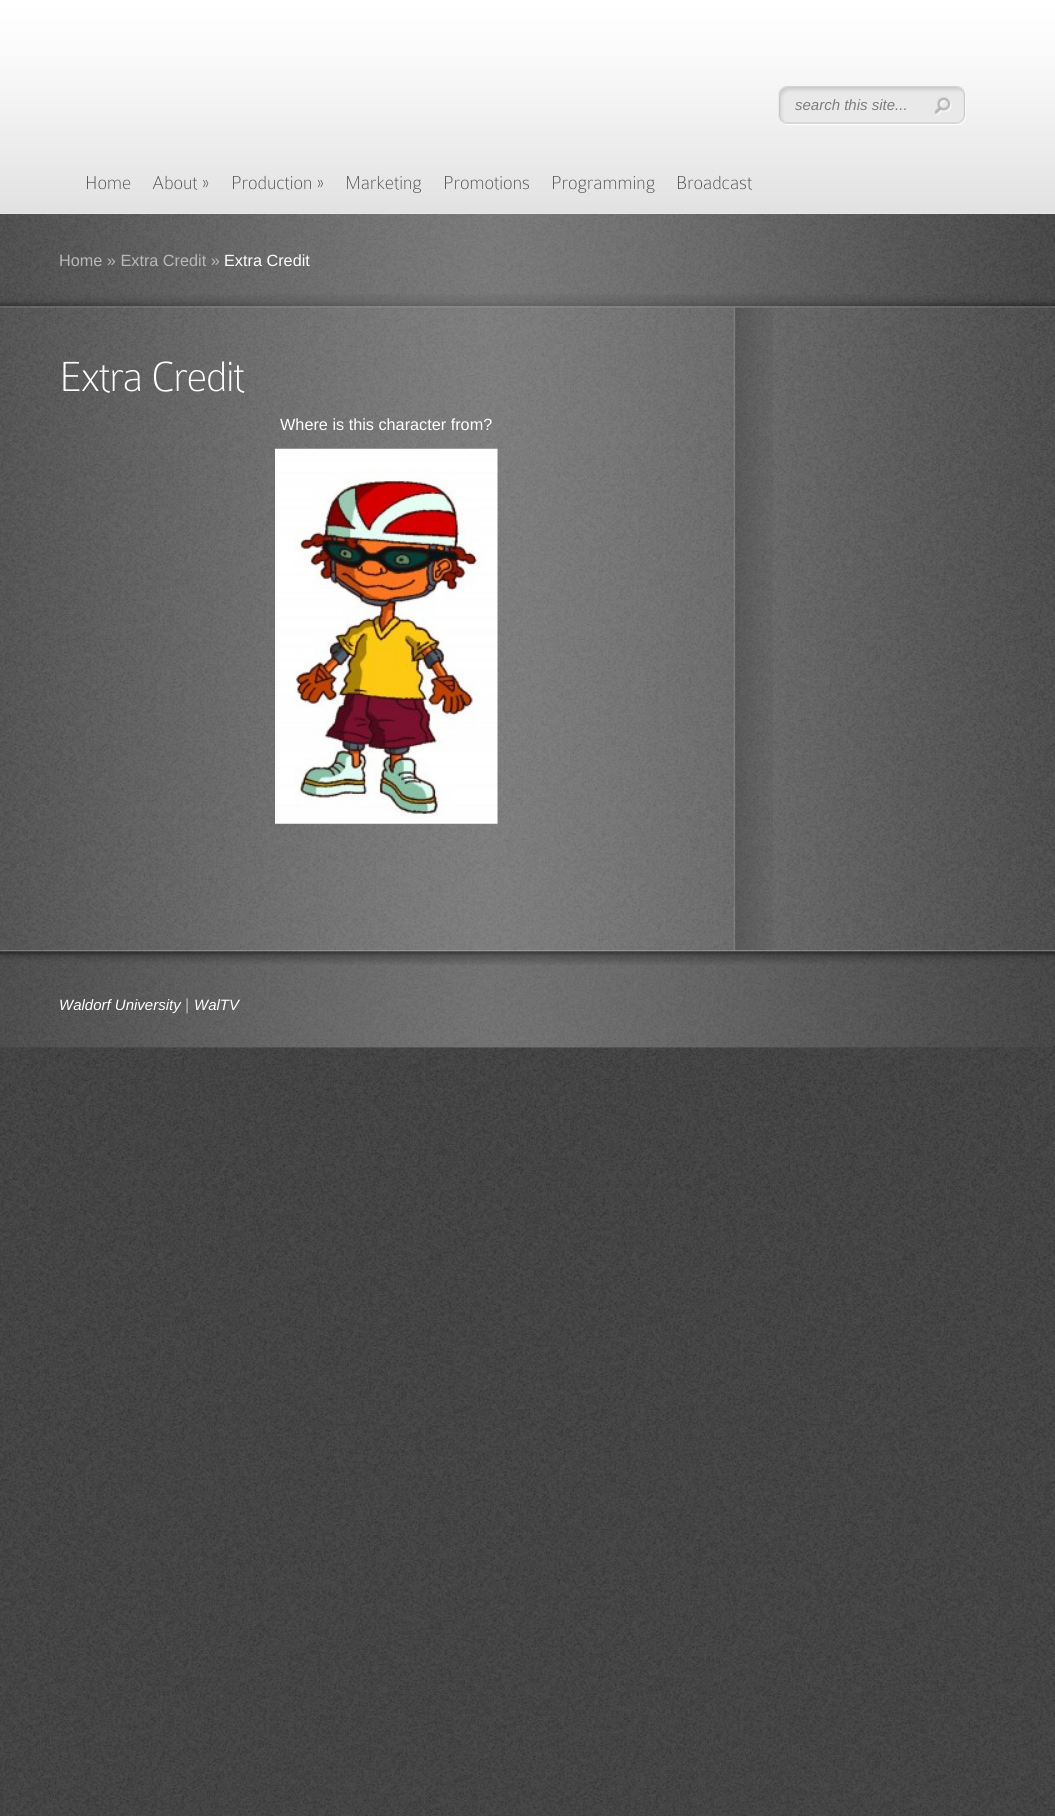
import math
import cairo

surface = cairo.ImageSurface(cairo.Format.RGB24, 1055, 1816)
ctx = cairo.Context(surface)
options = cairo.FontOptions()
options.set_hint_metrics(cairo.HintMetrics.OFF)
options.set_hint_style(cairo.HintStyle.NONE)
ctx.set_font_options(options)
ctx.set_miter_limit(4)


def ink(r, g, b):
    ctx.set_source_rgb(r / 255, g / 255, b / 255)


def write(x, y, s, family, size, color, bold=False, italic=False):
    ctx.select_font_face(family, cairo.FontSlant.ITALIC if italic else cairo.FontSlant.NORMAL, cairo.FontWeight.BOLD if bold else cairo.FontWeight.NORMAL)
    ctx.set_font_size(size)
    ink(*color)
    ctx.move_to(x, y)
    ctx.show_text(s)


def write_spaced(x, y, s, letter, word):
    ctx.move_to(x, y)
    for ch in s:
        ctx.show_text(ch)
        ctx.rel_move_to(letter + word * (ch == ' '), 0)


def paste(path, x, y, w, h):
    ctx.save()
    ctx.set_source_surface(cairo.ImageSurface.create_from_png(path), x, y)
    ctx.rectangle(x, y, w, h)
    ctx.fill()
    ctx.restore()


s1 = dict(family="Liberation Sans", size=15, color=(125, 125, 125), italic=True)
s2 = dict(family="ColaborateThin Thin", size=20, color=(83, 83, 83))
s3 = dict(family="Liberation Sans", size=16.25, color=(185, 185, 185))
s4 = dict(family="Liberation Sans", size=16.25, color=(255, 255, 255))
s5 = dict(family="Liberation Sans", size=15, color=(255, 255, 255), italic=True)

ink(255, 255, 255)
ctx.paint()
paste("pic1.png", 0, 214, 1055, 1602)
paste("pic2.png", 0, 0, 1055, 213)
paste("pic3.png", 778, 86, 188, 39)
write(795, 110, "search this site...", **s1)
paste("pic4.png", 934, 97, 18, 18)
write(85, 189, "Home", **s2)
write(152, 189, "About »", **s2)
write(231, 189, "Production »", **s2)
write(345, 189, "Marketing", **s2)
write(443, 189, "Promotions", **s2)
write(551, 189, "Programming", **s2)
write(676, 189, "Broadcast", **s2)
paste("pic5.png", 0, 303, 1055, 5)
paste("pic6.png", 0, 294, 1055, 14)
ctx.set_source_rgba(0, 0, 0, 0.09)
ctx.rectangle(0, 213, 1055, 95)
ctx.fill()
paste("pic7.png", 0, 214, 1055, 94)
write(59, 266, "Home » Extra Credit »", **s3)
write(224, 266, "Extra Credit", **s4)
paste("pic8.png", 0, 307, 1055, 741)
paste("pic9.png", 733, 307, 40, 643)
ctx.select_font_face("ColaborateThin Thin")
ctx.set_font_size(45)
write_spaced(59, 391, "Extra Credit", -1.25, 0)
write(280, 430, "Where is this character from?", **s4)
paste("pic10.png", 275, 448, 223, 376)
ctx.set_source_rgba(0, 0, 0, 0.09)
ctx.rectangle(0, 950, 1055, 98)
ctx.fill()
paste("pic11.png", 0, 950, 1055, 5)
paste("pic12.png", 0, 950, 1055, 15)
write(59, 1010, "Waldorf University", **s5)
write(185, 1010, "|", **s3)
write(194, 1010, "WalTV", **s5)
surface.write_to_png("screenshot.png")
